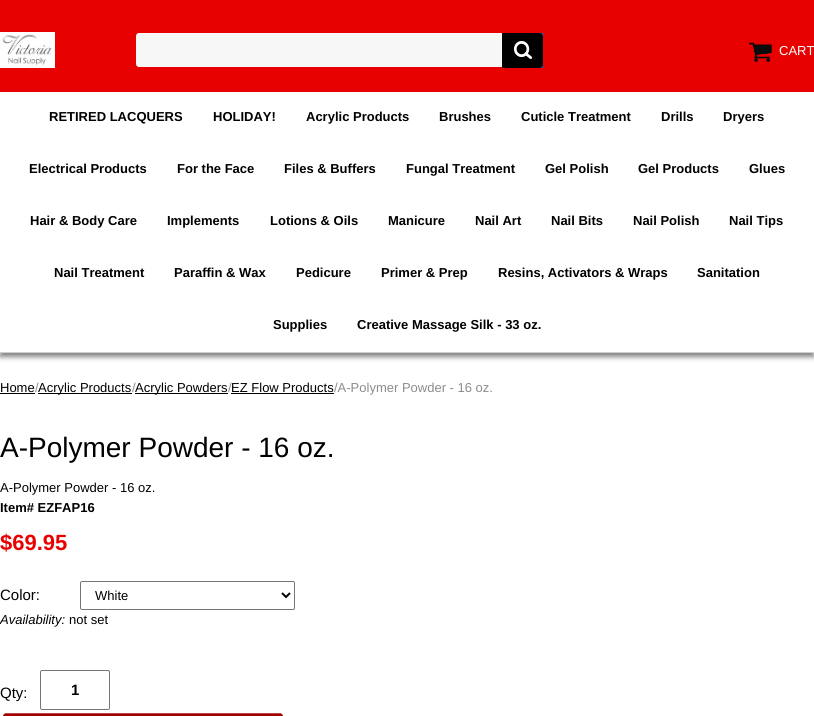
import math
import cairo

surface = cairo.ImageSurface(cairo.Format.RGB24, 814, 716)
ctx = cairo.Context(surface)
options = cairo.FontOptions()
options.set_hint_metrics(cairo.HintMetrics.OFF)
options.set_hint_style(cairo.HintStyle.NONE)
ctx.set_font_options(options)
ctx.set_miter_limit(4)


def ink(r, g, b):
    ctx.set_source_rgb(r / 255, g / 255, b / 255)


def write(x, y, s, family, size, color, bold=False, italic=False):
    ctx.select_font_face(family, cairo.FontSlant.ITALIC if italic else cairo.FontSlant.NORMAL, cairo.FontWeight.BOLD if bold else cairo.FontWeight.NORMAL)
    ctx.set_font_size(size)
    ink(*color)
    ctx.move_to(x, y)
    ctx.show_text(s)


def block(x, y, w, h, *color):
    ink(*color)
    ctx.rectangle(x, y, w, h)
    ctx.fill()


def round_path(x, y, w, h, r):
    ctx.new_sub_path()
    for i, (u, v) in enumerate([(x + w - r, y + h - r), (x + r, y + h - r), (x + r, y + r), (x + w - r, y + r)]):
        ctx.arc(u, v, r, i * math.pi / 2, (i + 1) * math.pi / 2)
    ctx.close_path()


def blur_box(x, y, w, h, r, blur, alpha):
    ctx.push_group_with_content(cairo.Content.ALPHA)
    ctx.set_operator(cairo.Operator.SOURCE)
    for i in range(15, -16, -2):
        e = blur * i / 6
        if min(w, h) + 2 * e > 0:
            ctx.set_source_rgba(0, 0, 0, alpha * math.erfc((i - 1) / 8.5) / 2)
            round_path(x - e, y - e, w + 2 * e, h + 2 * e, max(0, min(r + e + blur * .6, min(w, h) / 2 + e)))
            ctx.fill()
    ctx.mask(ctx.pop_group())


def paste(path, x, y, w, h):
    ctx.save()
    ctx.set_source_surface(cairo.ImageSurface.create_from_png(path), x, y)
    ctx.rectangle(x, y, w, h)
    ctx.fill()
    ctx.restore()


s1 = dict(family="Liberation Sans", size=13, color=(255, 255, 255))
s2 = dict(family="Liberation Sans", size=13, color=(0, 0, 0), bold=True)
s3 = dict(family="Liberation Sans", size=13, color=(0, 0, 0))
s4 = dict(family="Liberation Sans", size=13, color=(140, 140, 140))
s5 = dict(family="Liberation Sans", size=28, color=(0, 0, 0))
s6 = dict(family="Liberation Sans", size=22, color=(232, 1, 1), bold=True)
s7 = dict(family="Liberation Sans", size=15, color=(0, 0, 0))
s8 = dict(family="Liberation Sans", size=13, color=(0, 0, 0), italic=True)
s9 = dict(family="Liberation Sans", size=15, color=(0, 0, 0), bold=True)

ink(255, 255, 255)
ctx.paint()
block(0, 0, 814, 92, 232, 1, 1)
paste("pic1.png", 0, 32, 55, 36)
ink(247, 247, 247)
round_path(136, 33, 407, 34, 3)
ctx.fill()
paste("pic2.png", 502, 33, 41, 35)
paste("pic3.png", 749, 42, 23, 20)
write(779, 55, "CART", **s1)
ink(0, 0, 0)
blur_box(0, 96, 814, 261, 0, 2.5, 0.48)
block(0, 92, 814, 260, 255, 255, 255)
block(0, 352, 814, 1, 208, 208, 208)
write(49, 121, "RETIRED LACQUERS", **s2)
write(213, 121, "HOLIDAY!", **s2)
write(306, 121, "Acrylic Products", **s2)
write(439, 121, "Brushes", **s2)
write(521, 121, "Cuticle Treatment", **s2)
write(661, 121, "Drills", **s2)
write(723, 121, "Dryers", **s2)
write(29, 173, "Electrical Products", **s2)
write(177, 173, "For the Face", **s2)
write(284, 173, "Files & Buffers", **s2)
write(406, 173, "Fungal Treatment", **s2)
write(545, 173, "Gel Polish", **s2)
write(638, 173, "Gel Products", **s2)
write(749, 173, "Glues", **s2)
write(30, 225, "Hair & Body Care", **s2)
write(167, 225, "Implements", **s2)
write(270, 225, "Lotions & Oils", **s2)
write(388, 225, "Manicure", **s2)
write(475, 225, "Nail Art", **s2)
write(551, 225, "Nail Bits", **s2)
write(633, 225, "Nail Polish", **s2)
write(729, 225, "Nail Tips", **s2)
write(54, 277, "Nail Treatment", **s2)
write(174, 277, "Paraffin & Wax", **s2)
write(296, 277, "Pedicure", **s2)
write(381, 277, "Primer & Prep", **s2)
write(498, 277, "Resins, Activators & Wraps", **s2)
write(697, 277, "Sanitation", **s2)
write(273, 329, "Supplies", **s2)
write(357, 329, "Creative Massage Silk - 33 oz.", **s2)
write(0, 392, "Home", **s3)
write(35, 392, "/", **s4)
block(38, 393, 94, 1, 0, 0, 0)
write(38, 392, "Acrylic Products", **s3)
write(132, 392, "/", **s4)
block(135, 393, 93, 1, 0, 0, 0)
write(135, 392, "Acrylic Powders EZ Flow Products", **s3)
block(0, 393, 35, 1, 0, 0, 0)
write(228, 392, "/", **s4)
block(231, 393, 103, 1, 0, 0, 0)
write(334, 392, "/A-Polymer Powder - 16 oz.", **s4)
write(0, 457, "A-Polymer Powder - 16 oz.", **s5)
write(0, 492, "A-Polymer Powder - 16 oz.", **s3)
write(0, 512, "Item# EZFAP16", **s2)
write(0, 550, "$69.95", **s6)
write(0, 600, "Color:", **s7)
round_path(80.5, 581.5, 214, 28, 1.5)
ink(118, 118, 118)
ctx.set_line_width(1)
ctx.stroke()
ctx.new_path()
ctx.move_to(282, 593)
ctx.line_to(286, 597)
ctx.line_to(290, 593)
ink(0, 0, 0)
ctx.set_line_width(2)
ctx.stroke()
write(95, 600, "White", **s3)
write(0, 624, "Availability:", **s8)
write(69, 624, "not set", **s3)
write(0, 698, "Qty:", **s7)
round_path(40.5, 670.5, 69, 39, 1.5)
ink(118, 118, 118)
ctx.set_line_width(1)
ctx.stroke()
write(71, 695, "1", **s9)
paste("pic4.png", 3, 713, 280, 3)
surface.write_to_png("screenshot.png")
